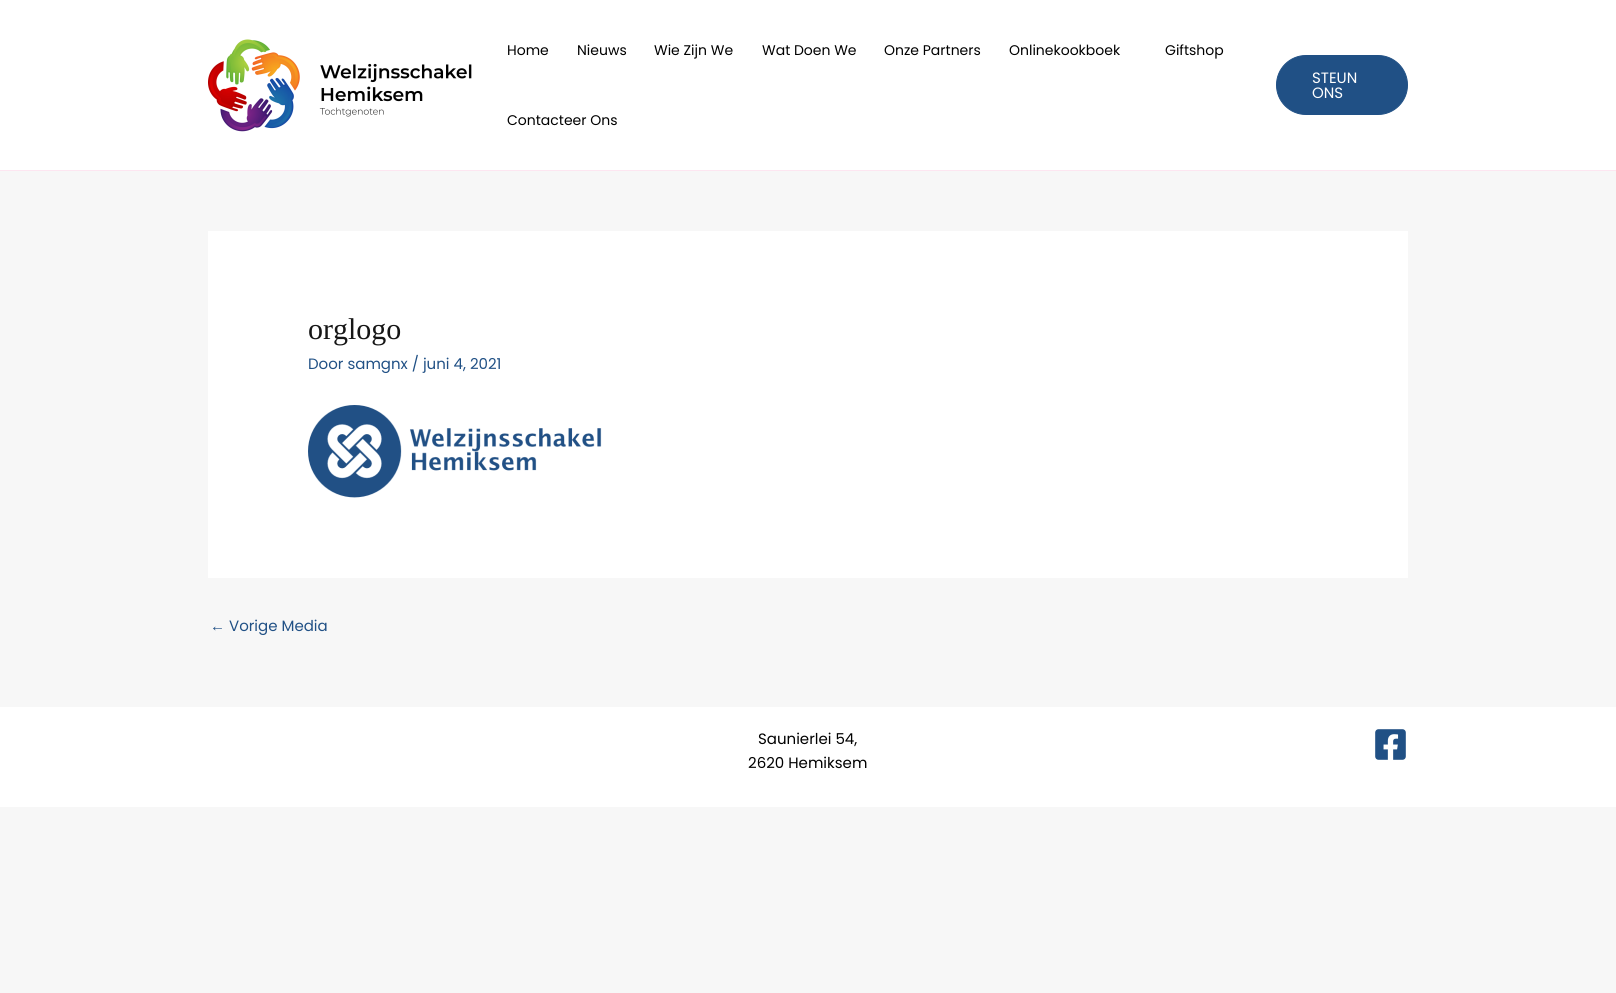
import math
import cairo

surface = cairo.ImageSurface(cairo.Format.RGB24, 1616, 993)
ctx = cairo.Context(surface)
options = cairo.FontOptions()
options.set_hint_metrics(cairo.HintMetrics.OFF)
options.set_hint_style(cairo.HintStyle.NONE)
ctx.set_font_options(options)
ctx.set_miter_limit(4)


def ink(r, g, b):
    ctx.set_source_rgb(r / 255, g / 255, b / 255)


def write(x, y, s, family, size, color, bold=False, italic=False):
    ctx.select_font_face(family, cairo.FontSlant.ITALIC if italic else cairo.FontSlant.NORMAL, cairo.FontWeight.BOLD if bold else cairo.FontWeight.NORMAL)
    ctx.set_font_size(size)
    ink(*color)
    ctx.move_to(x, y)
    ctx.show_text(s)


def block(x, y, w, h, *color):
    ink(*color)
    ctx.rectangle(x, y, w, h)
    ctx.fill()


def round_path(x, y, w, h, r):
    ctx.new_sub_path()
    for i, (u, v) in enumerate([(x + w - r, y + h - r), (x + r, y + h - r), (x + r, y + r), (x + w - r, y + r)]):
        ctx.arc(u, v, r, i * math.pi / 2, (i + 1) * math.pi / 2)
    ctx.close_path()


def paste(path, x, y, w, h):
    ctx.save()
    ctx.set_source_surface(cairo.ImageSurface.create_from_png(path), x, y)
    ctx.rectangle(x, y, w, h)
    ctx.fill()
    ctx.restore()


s1 = dict(family="Poppins", size=14, color=(0, 0, 0))
s2 = dict(family="Poppins", size=15, color=(255, 255, 255))
s3 = dict(family="Liberation Serif", size=30, color=(22, 22, 22))
s4 = dict(family="Poppins", size=15, color=(32, 80, 133))
s5 = dict(family="Liberation Sans", size=15, color=(32, 80, 133))
s6 = dict(family="Poppins", size=15, color=(0, 0, 0))

ink(247, 247, 247)
ctx.paint()
block(0, 0, 1616, 170, 255, 255, 255)
block(0, 170, 1616, 1, 253, 230, 241)
paste("pic1.png", 208, 39, 264, 93)
write(507, 55, "Home", **s1)
write(577, 55, "Nieuws", **s1)
write(654, 55, "Wie Zijn We", **s1)
write(762, 55, "Wat Doen We", **s1)
write(884, 55, "Onze Partners", **s1)
write(1009, 55, "Onlinekookboek", **s1)
write(1165, 55, "Giftshop", **s1)
write(507, 125, "Contacteer Ons", **s1)
ink(32, 80, 133)
round_path(1276.5, 55.5, 131, 59, 29.5)
ctx.fill_preserve()
ctx.set_line_width(1)
ctx.stroke()
write(1312, 83, "STEUN", **s2)
write(1312, 98, "ONS", **s2)
block(208, 231, 1200, 347, 255, 255, 255)
write(308, 339, "orglogo", **s3)
write(308, 369, "Door samgnx / juni 4, 2021", **s4)
paste("pic2.png", 308, 405, 294, 93)
write(210, 631, "←", **s5)
write(229, 631, "Vorige Media", **s4)
block(0, 707, 1616, 100, 255, 255, 255)
write(758, 744, "Saunierlei 54,", **s6)
write(748, 768, "2620 Hemiksem", **s6)
paste("pic3.png", 1375, 729, 31, 31)
surface.write_to_png("screenshot.png")
